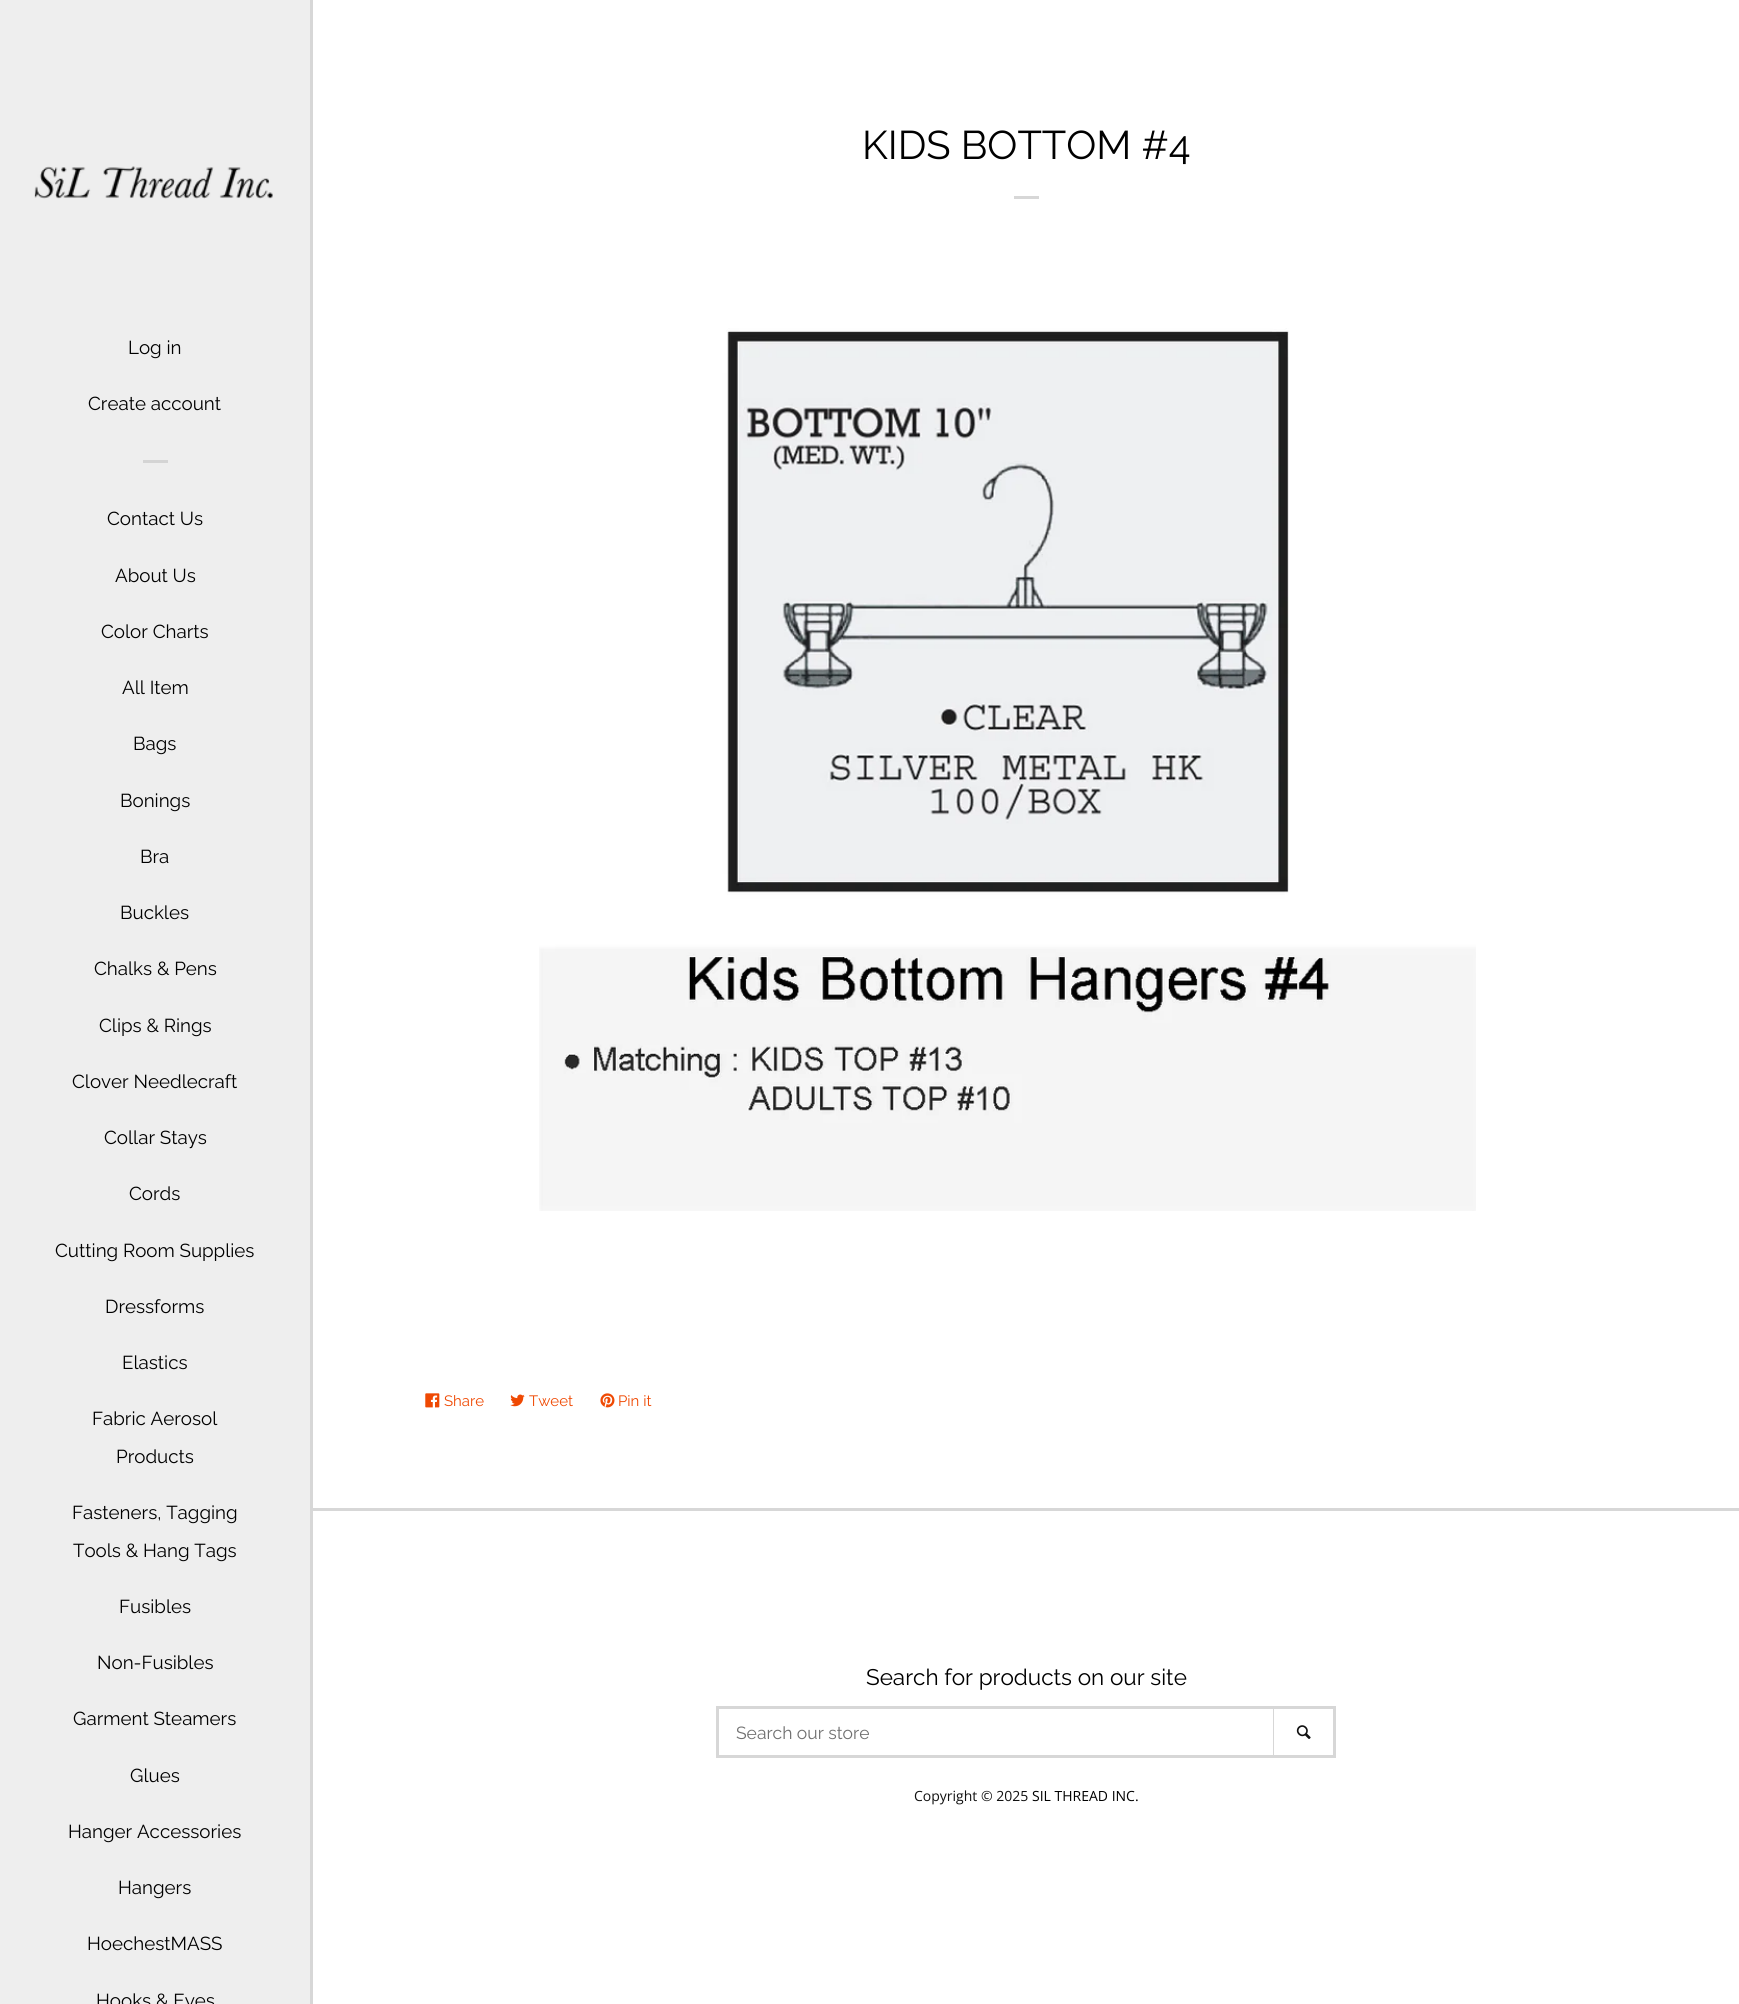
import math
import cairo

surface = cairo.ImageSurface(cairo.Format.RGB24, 1739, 2004)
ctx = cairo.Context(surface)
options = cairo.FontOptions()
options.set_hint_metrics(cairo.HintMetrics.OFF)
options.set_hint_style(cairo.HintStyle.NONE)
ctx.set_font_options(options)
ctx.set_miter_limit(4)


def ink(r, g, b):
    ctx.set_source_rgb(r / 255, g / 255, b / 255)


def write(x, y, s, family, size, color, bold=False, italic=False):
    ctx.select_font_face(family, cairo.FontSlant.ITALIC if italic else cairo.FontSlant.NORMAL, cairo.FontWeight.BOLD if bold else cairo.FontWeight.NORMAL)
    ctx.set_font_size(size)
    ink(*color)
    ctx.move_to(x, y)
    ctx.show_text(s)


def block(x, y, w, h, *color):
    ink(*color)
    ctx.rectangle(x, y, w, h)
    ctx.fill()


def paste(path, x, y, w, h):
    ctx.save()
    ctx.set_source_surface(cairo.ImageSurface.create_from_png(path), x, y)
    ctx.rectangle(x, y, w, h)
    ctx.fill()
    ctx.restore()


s1 = dict(family="Raleway Thin", size=18.75, color=(0, 0, 0))
s2 = dict(family="Raleway Thin", size=40, color=(0, 0, 0))
s3 = dict(family="Raleway Thin", size=15, color=(239, 73, 3))
s4 = dict(family="Raleway Thin", size=22.5, color=(0, 0, 0))
s5 = dict(family="Raleway Thin", size=17.5, color=(112, 112, 112))
s6 = dict(family="Open Sans", size=14, color=(17, 17, 17))
s7 = dict(family="Open Sans", size=14, color=(0, 0, 0))

ink(238, 238, 238)
ctx.paint()
block(310, 0, 3, 2004, 215, 215, 215)
paste("pic1.png", 34, 166, 239, 33)
write(128, 354, "Log in", **s1)
write(88, 410, "Create account", **s1)
block(143, 460, 25, 3, 212, 212, 212)
write(107, 525, "Contact Us", **s1)
write(115, 582, "About Us", **s1)
write(101, 638, "Color Charts", **s1)
write(122, 694, "All Item", **s1)
write(133, 750, "Bags", **s1)
write(120, 807, "Bonings", **s1)
write(140, 863, "Bra", **s1)
write(120, 919, "Buckles", **s1)
write(94, 975, "Chalks & Pens", **s1)
write(99, 1032, "Clips & Rings", **s1)
write(72, 1088, "Clover Needlecraft", **s1)
write(104, 1144, "Collar Stays", **s1)
write(129, 1200, "Cords", **s1)
write(55, 1257, "Cutting Room Supplies", **s1)
write(105, 1313, "Dressforms", **s1)
write(122, 1369, "Elastics", **s1)
write(92, 1425, "Fabric Aerosol", **s1)
write(116, 1463, "Products", **s1)
write(72, 1519, "Fasteners, Tagging", **s1)
write(73, 1557, "Tools & Hang Tags", **s1)
write(119, 1613, "Fusibles", **s1)
write(97, 1669, "Non-Fusibles", **s1)
write(73, 1725, "Garment Steamers", **s1)
write(130, 1782, "Glues", **s1)
write(68, 1838, "Hanger Accessories", **s1)
write(118, 1894, "Hangers", **s1)
write(87, 1950, "HoechestMASS", **s1)
write(96, 2007, "Hooks & Eyes", **s1)
block(313, 0, 1426, 2004, 255, 255, 255)
write(862, 159, "KIDS BOTTOM #4", **s2)
block(1014, 196, 25, 3, 215, 215, 215)
paste("pic2.png", 539, 328, 937, 883)
paste("pic3.png", 425, 1393, 15, 15)
write(444, 1406, "Share", **s3)
paste("pic4.png", 510, 1394, 15, 13)
write(529, 1406, "Tweet", **s3)
paste("pic5.png", 600, 1393, 15, 15)
write(618, 1406, "Pin it", **s3)
block(313, 1508, 1426, 3, 215, 215, 215)
write(866, 1685, "Search for products on our site", **s4)
ctx.rectangle(717.5, 1707.5, 617, 49)
ink(215, 215, 215)
ctx.set_line_width(3)
ctx.stroke()
block(1273, 1709, 1, 46, 215, 215, 215)
write(736, 1739, "Search our store", **s5)
paste("pic6.png", 1296, 1725, 15, 14)
write(914, 1801, "Copyright © 2025", **s6)
write(1032, 1801, "SIL THREAD INC.", **s7)
surface.write_to_png("screenshot.png")
